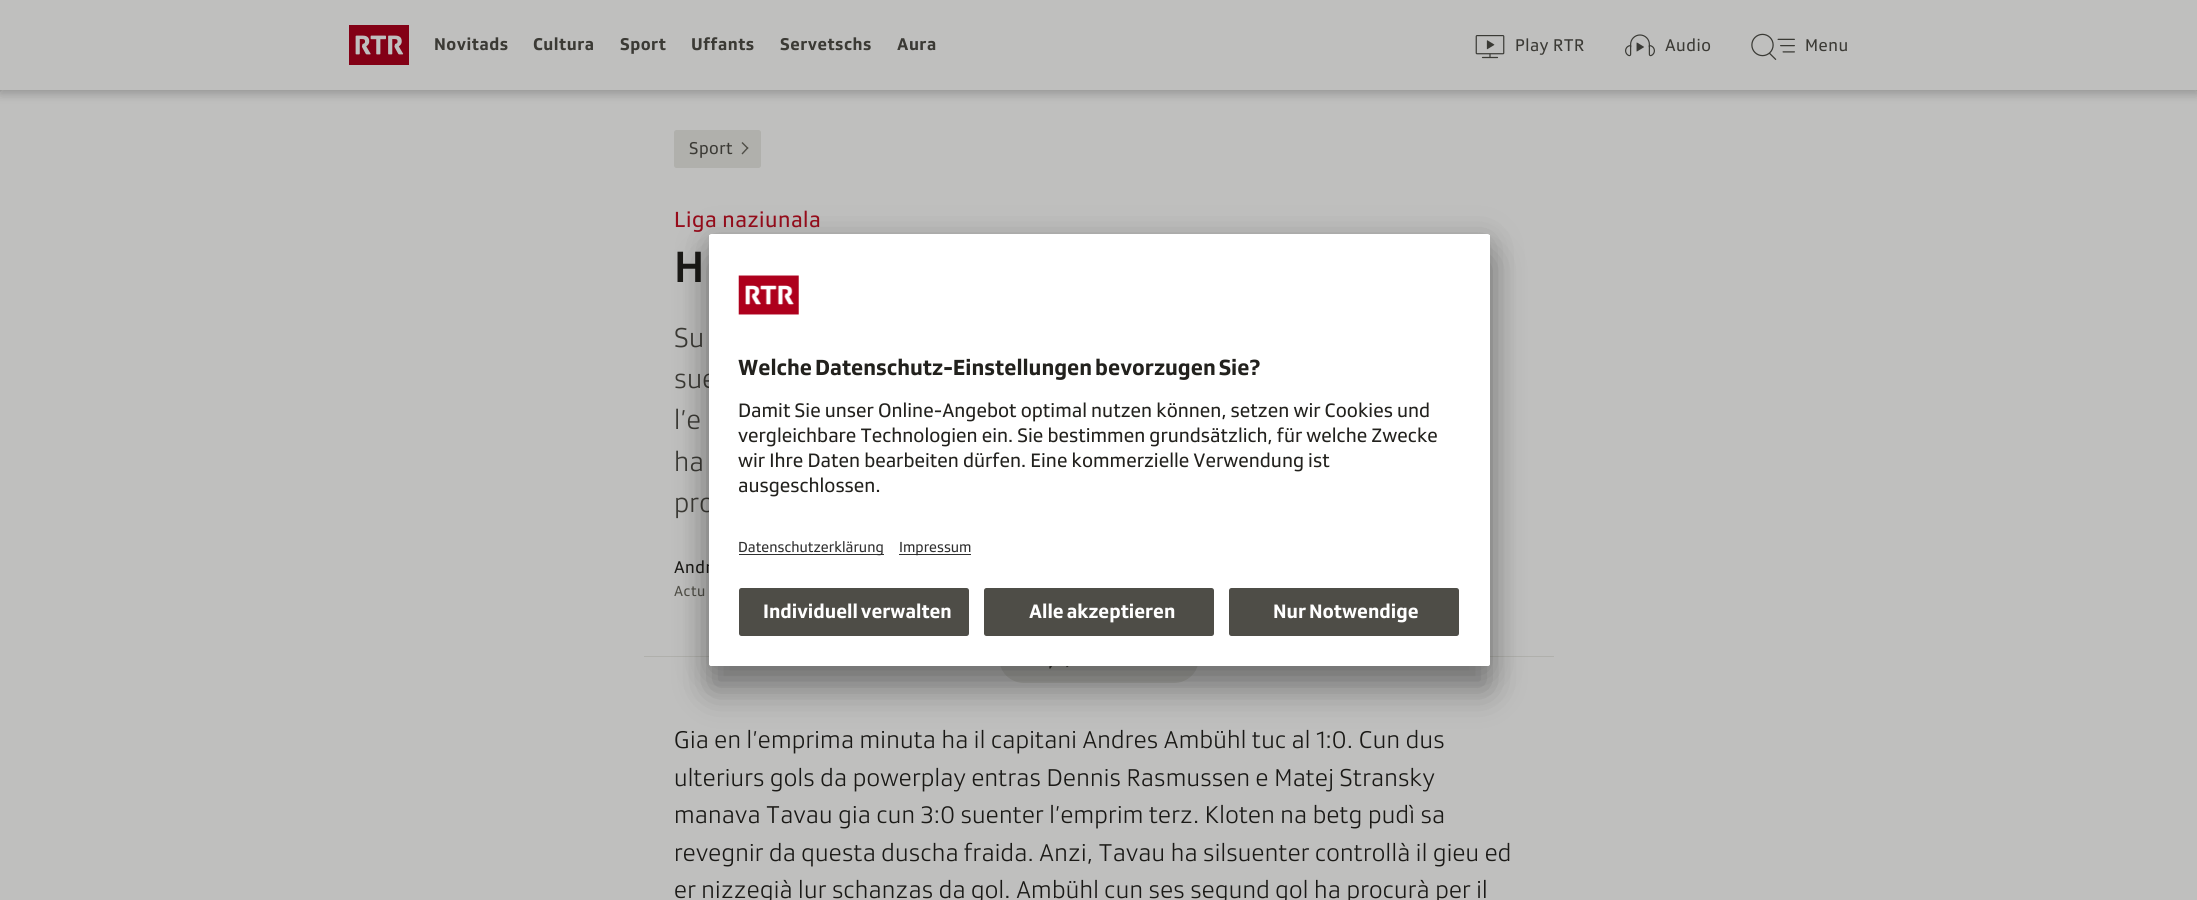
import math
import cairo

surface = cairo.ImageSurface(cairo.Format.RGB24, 2197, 900)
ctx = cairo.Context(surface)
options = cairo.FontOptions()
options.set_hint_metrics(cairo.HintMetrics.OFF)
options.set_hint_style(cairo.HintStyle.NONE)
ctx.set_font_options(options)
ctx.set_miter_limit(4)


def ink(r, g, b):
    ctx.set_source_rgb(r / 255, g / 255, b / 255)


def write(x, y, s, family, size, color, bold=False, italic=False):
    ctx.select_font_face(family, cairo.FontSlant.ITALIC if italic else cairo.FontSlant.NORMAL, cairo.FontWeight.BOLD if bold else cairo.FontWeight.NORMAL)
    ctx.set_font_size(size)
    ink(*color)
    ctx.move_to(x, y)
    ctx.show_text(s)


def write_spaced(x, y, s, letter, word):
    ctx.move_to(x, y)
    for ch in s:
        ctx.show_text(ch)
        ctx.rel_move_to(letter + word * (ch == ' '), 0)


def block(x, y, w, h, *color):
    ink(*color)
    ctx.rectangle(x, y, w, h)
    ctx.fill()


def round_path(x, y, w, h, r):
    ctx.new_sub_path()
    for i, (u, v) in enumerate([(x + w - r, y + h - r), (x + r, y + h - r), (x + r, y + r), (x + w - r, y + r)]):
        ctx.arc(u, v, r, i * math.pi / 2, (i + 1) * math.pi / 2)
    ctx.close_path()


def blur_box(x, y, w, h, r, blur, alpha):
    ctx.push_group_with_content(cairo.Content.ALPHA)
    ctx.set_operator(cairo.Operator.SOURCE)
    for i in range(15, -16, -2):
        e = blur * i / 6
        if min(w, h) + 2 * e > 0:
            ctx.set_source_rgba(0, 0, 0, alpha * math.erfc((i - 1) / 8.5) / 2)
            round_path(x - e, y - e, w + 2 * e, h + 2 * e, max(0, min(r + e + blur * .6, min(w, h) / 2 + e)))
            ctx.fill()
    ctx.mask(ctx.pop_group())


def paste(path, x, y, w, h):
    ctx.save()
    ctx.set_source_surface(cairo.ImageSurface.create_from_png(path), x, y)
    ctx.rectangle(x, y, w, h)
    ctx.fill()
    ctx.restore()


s1 = dict(family="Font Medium", size=45, color=(26, 25, 22))
s2 = dict(family="Font", size=20, color=(34, 33, 29))
s3 = dict(family="Font", size=15, color=(48, 48, 48))

ink(184, 184, 182)
ctx.paint()
ink(0, 0, 0)
blur_box(0, 90, 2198, 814, 2.5, 0.5, 0.08)
blur_box(0, 90, 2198, 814, 2.5, 0.5, 0.16)
ink(191, 191, 190)
round_path(0, 90, 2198, 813, 2.5)
ctx.fill()
ink(0, 0, 0)
blur_box(0, 38, 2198, 52, 0, 5, 0.08)
blur_box(0, 43, 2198, 52, 0, 5, 0.16)
block(0, 0, 2197, 90, 191, 191, 190)
paste("pic1.png", 349, 25, 60, 40)
ctx.select_font_face("Font", cairo.FontSlant.NORMAL, cairo.FontWeight.BOLD)
ctx.set_font_size(17.5)
ink(59, 58, 53)
write_spaced(434, 50, "Novitads", 0.5, 0)
write_spaced(533, 50, "Cultura", 0.5, 0)
write_spaced(620, 50, "Sport", 0.5, 0)
write_spaced(691, 50, "Uffants", 0.5, 0)
write_spaced(780, 50, "Servetschs", 0.5, 0)
write_spaced(897, 50, "Aura", 0.5, 0)
paste("pic2.png", 1475, 35, 30, 24)
ctx.select_font_face("Font")
write_spaced(1515, 51, "Play RTR", 0.5, 0)
paste("pic3.png", 1625, 34, 30, 23)
write_spaced(1665, 51, "Audio", 0.5, 0)
paste("pic4.png", 1751, 33, 44, 27)
write_spaced(1805, 51, "Menu", 0.5, 0)
ink(176, 176, 172)
round_path(674, 130, 87, 38, 2.5)
ctx.fill()
ink(59, 58, 53)
write_spaced(689, 154, "Sport", 0.5, 0)
ink(80, 79, 72)
ctx.new_path()
ctx.move_to(741.5, 143)
ctx.line_to(742.5, 142)
ctx.line_to(748.5, 148)
ctx.line_to(747.5, 149)
ctx.close_path()
ctx.fill()
ctx.new_path()
ctx.move_to(741.5, 153.5)
ctx.line_to(747.5, 147)
ctx.line_to(748.5, 148)
ctx.line_to(742.5, 154.5)
ctx.close_path()
ctx.fill()
ctx.set_font_size(22.5)
ink(151, 12, 27)
write_spaced(674, 227, "Liga naziunala", 0.5, 0)
write(674, 282, "H", **s1)
ctx.select_font_face("Font Light")
ctx.set_font_size(28)
ink(59, 58, 53)
write_spaced(674, 347, "Su", 0.25, 0)
write_spaced(674, 388, "sue", 0.25, 0)
write_spaced(674, 429, "l’e", 0.25, 0)
write_spaced(674, 471, "ha", 0.25, 0)
write_spaced(674, 512, "pro", 0.25, 0)
ctx.select_font_face("Font")
ctx.set_font_size(17.5)
ink(26, 25, 22)
write_spaced(674, 573, "Andr", 0.5, 0)
ctx.set_font_size(15)
ink(80, 79, 72)
write_spaced(674, 596, "Actu", 0.5, 0)
block(644, 656, 910, 1, 176, 176, 172)
round_path(999, 633, 200, 50, 25)
ctx.fill()
ctx.new_path()
ctx.move_to(1067, 653)
ctx.curve_to(1067, 653, 1050, 651, 1050, 668)
ctx.curve_to(1055.5, 658, 1067, 661, 1067, 661)
ctx.line_to(1067, 666.5)
ctx.line_to(1078.5, 657)
ctx.line_to(1067, 647.5)
ctx.close_path()
ink(59, 58, 53)
ctx.set_line_width(1.4)
ctx.set_line_join(cairo.LineJoin.ROUND)
ctx.stroke()
ctx.select_font_face("Font Light")
ctx.set_font_size(25)
ink(26, 25, 22)
write_spaced(674, 748, "Gia en l’emprima minuta ha il capitani Andres Ambühl tuc al 1:0. Cun dus", 0.25, 0)
write_spaced(674, 786, "ulteriurs gols da powerplay entras Dennis Rasmussen e Matej Stransky", 0.25, 0)
write_spaced(674, 823, "manava Tavau gia cun 3:0 suenter l’emprim terz. Kloten na betg pudì sa", 0.25, 0)
write_spaced(674, 861, "revegnir da questa duscha fraida. Anzi, Tavau ha silsuenter controllà il gieu ed", 0.25, 0)
write_spaced(674, 898, "er nizzegià lur schanzas da gol. Ambühl cun ses segund gol ha procurà per il", 0.25, 0)
ink(0, 0, 0)
blur_box(709, 259, 781, 432, 2.5, 17.5, 0.3)
blur_box(709, 240, 781, 433, 2.5, 16, 0.22)
ink(255, 255, 255)
round_path(709, 234, 781, 432, 2.5)
ctx.fill()
block(709, 235, 781, 1, 255, 255, 255)
paste("pic5.png", 738, 275, 61, 40)
ctx.select_font_face("Font", cairo.FontSlant.NORMAL, cairo.FontWeight.BOLD)
ctx.set_font_size(22.5)
ink(34, 33, 29)
write_spaced(738, 375, "Welche Datenschutz-Einstellungen bevorzugen Sie?", 0, -1.5)
write(738, 417, "Damit Sie unser Online-Angebot optimal nutzen können, setzen wir Cookies und", **s2)
write(738, 442, "vergleichbare Technologien ein. Sie bestimmen grundsätzlich, für welche Zwecke", **s2)
write(738, 467, "wir Ihre Daten bearbeiten dürfen. Eine kommerzielle Verwendung ist", **s2)
write(738, 492, "ausgeschlossen.", **s2)
block(739, 554, 145, 1, 48, 48, 48)
write(738, 552, "Datenschutzerklärung", **s3)
block(899, 554, 72, 1, 48, 48, 48)
write(899, 552, "Impressum", **s3)
ink(255, 255, 255)
ctx.new_path()
ctx.move_to(709, 578)
ctx.line_to(1490, 578)
ctx.line_to(1490, 663.5)
ctx.curve_to(1490, 665, 1489, 666, 1487.5, 666)
ctx.line_to(711.5, 666)
ctx.curve_to(710, 666, 709, 665, 709, 663.5)
ctx.close_path()
ctx.fill()
ink(78, 77, 71)
round_path(739, 588, 230, 48, 2.5)
ctx.fill()
ctx.select_font_face("Font", cairo.FontSlant.NORMAL, cairo.FontWeight.BOLD)
ctx.set_font_size(20)
ink(255, 255, 255)
write_spaced(763, 618, "Individuell verwalten", 0, -1)
ink(78, 77, 71)
round_path(984, 588, 230, 48, 2.5)
ctx.fill()
ink(255, 255, 255)
write_spaced(1029, 618, "Alle akzeptieren", 0, -1)
ink(78, 77, 71)
round_path(1229, 588, 230, 48, 2.5)
ctx.fill()
ink(255, 255, 255)
write_spaced(1273, 618, "Nur Notwendige", 0, -1)
surface.write_to_png("screenshot.png")
